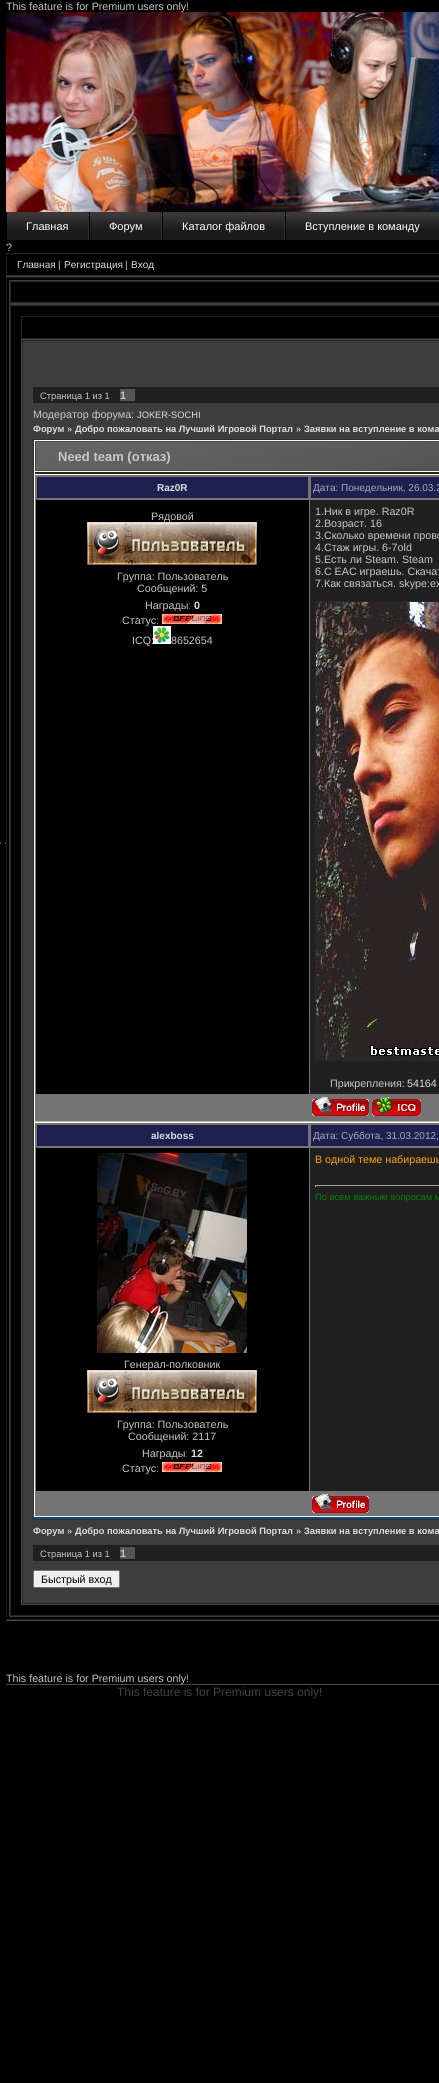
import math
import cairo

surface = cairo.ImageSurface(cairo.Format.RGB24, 439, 2083)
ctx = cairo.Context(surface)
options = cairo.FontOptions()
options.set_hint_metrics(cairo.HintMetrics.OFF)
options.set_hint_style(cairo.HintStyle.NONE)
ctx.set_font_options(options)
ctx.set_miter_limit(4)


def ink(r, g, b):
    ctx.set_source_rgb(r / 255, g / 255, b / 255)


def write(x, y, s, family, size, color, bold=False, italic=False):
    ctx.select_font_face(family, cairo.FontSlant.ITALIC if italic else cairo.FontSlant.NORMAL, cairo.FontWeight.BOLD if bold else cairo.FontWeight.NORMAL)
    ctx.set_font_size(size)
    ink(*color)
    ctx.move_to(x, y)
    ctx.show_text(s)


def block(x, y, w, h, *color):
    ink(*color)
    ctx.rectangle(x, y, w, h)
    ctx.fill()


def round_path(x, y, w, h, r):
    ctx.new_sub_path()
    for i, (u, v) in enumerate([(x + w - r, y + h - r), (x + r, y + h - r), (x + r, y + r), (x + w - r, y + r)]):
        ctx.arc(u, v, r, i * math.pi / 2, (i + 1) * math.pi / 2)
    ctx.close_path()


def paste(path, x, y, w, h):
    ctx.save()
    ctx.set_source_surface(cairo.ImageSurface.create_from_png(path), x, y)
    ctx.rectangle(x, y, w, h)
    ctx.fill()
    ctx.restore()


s1 = dict(family="Liberation Sans", size=10.7, color=(200, 200, 200))
s2 = dict(family="Liberation Sans", size=11, color=(255, 255, 255))
s3 = dict(family="Liberation Sans", size=10, color=(222, 222, 222))
s4 = dict(family="Liberation Sans", size=10, color=(200, 200, 200))
s5 = dict(family="Liberation Sans", size=9.3, color=(200, 200, 200))
s6 = dict(family="Liberation Sans", size=10.7, color=(200, 200, 200), bold=True)
s7 = dict(family="Liberation Sans", size=9.3, color=(222, 222, 222))
s8 = dict(family="Liberation Sans", size=9.3, color=(222, 222, 222), bold=True)
s9 = dict(family="Liberation Sans", size=9.3, color=(200, 200, 200), bold=True)
s10 = dict(family="Liberation Sans", size=13, color=(200, 200, 200), bold=True)
s11 = dict(family="Liberation Sans", size=10, color=(222, 222, 222), bold=True)
s12 = dict(family="Liberation Sans", size=10, color=(172, 172, 172))
s13 = dict(family="Liberation Sans", size=10.7, color=(222, 222, 222), bold=True)
s14 = dict(family="Liberation Sans", size=10.7, color=(222, 222, 222))
s15 = dict(family="Liberation Sans", size=10.7, color=(255, 165, 0))
s16 = dict(family="Liberation Sans", size=9.3, color=(0, 128, 0))
s17 = dict(family="Liberation Sans", size=10.7, color=(0, 0, 0))
s18 = dict(family="Liberation Sans", size=12, color=(68, 68, 68))

ink(0, 0, 0)
ctx.paint()
paste("pic1.png", 0, 842, 6, 2)
block(6, 1684, 433, 1, 73, 73, 73)
write(6, 10, "This feature is for Premium users only!", **s1)
paste("pic2.png", 6, 12, 433, 200)
paste("pic3.png", 7, 212, 81, 28)
block(88, 212, 1, 28, 51, 51, 51)
write(26, 230, "Главная", **s2)
paste("pic4.png", 90, 212, 71, 28)
block(161, 212, 1, 28, 51, 51, 51)
write(109, 230, "Форум", **s2)
paste("pic5.png", 163, 212, 121, 28)
block(284, 212, 1, 28, 51, 51, 51)
write(182, 230, "Каталог файлов", **s2)
paste("pic6.png", 286, 212, 153, 28)
write(305, 230, "Вступление в команду", **s2)
write(6, 251, "?", **s1)
ctx.rectangle(6.5, 253.5, 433, 22)
ink(38, 38, 38)
ctx.set_line_width(1)
ctx.stroke()
write(17, 268, "Главная", **s3)
write(58, 268, "|", **s4)
write(64, 268, "Регистрация", **s3)
write(125, 268, "|", **s4)
write(131, 268, "Вход", **s3)
block(6, 276, 433, 1, 73, 73, 73)
block(6, 1620, 433, 1, 73, 73, 73)
ctx.rectangle(6.5, 277.5, 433, 1342)
ink(26, 26, 26)
ctx.stroke()
ctx.rectangle(9.5, 280.5, 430, 23)
ink(60, 60, 60)
ctx.stroke()
ctx.rectangle(10.5, 281.5, 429, 21)
ink(38, 38, 38)
ctx.stroke()
ctx.rectangle(9.5, 304.5, 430, 1312)
ink(60, 60, 60)
ctx.stroke()
ctx.rectangle(10.5, 305.5, 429, 1310)
ink(38, 38, 38)
ctx.stroke()
ctx.rectangle(21.5, 316.5, 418, 22)
ctx.stroke()
ctx.rectangle(21.5, 339.5, 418, 1265)
ink(73, 73, 73)
ctx.stroke()
ink(61, 61, 61)
ctx.rectangle(22.5, 340.5, 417, 1263)
ctx.fill_preserve()
ink(38, 38, 38)
ctx.stroke()
block(33, 387, 406, 16, 32, 32, 32)
write(40, 399, "Страница 1 из 1", **s5)
block(120, 389, 15, 12, 85, 85, 85)
write(120, 399, "1", **s6)
write(33, 418, "Модератор форума:", **s1)
write(137, 418, "JOKER-SOCHI", **s7)
write(33, 432, "Форум", **s8)
write(67, 432, "»", **s9)
write(75, 432, "Добро пожаловать на Лучший Игровой Портал", **s8)
write(296, 432, "»", **s9)
write(304, 432, "Заявки на вступление в кома", **s8)
block(33, 439, 406, 1, 46, 46, 46)
block(33, 1519, 406, 1, 46, 46, 46)
block(33, 439, 1, 1081, 46, 46, 46)
block(34, 440, 405, 1077, 255, 255, 240)
block(34, 1517, 405, 2, 8, 75, 138)
paste("pic7.png", 36, 442, 403, 28)
ctx.rectangle(35.5, 441.5, 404, 29)
ink(73, 73, 73)
ctx.stroke()
write(58, 461, "Need team (отказ)", **s10)
block(35, 472, 404, 2, 37, 37, 37)
block(35, 1121, 404, 1, 192, 192, 192)
block(35, 475, 404, 646, 116, 116, 116)
block(37, 477, 271, 21, 31, 31, 82)
write(157, 491, "Raz0R", **s11)
block(311, 477, 128, 21, 31, 31, 82)
write(313, 491, "Дата: Понедельник, 26.03.2", **s12)
block(36, 500, 273, 594, 0, 0, 0)
write(151, 520, "Рядовой", **s1)
paste("pic8.png", 87, 522, 170, 43)
write(117, 580, "Группа: Пользователь", **s1)
write(137, 592, "Сообщений: 5", **s1)
write(145, 609, "Награды:", **s1)
write(194, 609, "0", **s13)
write(122, 624, "Статус:", **s1)
paste("pic9.png", 162, 614, 60, 10)
write(132, 644, "ICQ:", **s1)
paste("pic10.png", 153, 626, 18, 18)
write(171, 644, "8652654", **s1)
block(310, 500, 129, 594, 32, 32, 32)
write(315, 515, "1.Ник в игре. Raz0R", **s1)
write(315, 527, "2.Возраст. 16", **s1)
write(315, 539, "3.Сколько времени прово", **s1)
write(315, 551, "4.Стаж игры. 6-7old", **s1)
write(315, 563, "5.Есть ли Steam. Steam", **s1)
write(315, 575, "6.C EAC играешь. Скачат", **s1)
write(315, 587, "7.Как связаться. skype:ex", **s1)
paste("pic11.png", 315, 601, 124, 460)
write(330, 1087, "Прикрепления:", **s1)
write(407, 1087, "54164", **s14)
paste("pic12.png", 312, 1097, 57, 19)
paste("pic13.png", 372, 1097, 49, 19)
block(35, 1123, 404, 393, 116, 116, 116)
block(37, 1125, 271, 21, 31, 31, 82)
write(151, 1139, "alexboss", **s11)
block(311, 1125, 128, 21, 31, 31, 82)
write(313, 1139, "Дата: Суббота, 31.03.2012,", **s12)
block(310, 1148, 129, 343, 32, 32, 32)
write(315, 1163, "В одной теме набираешь", **s15)
block(315, 1185, 124, 1, 159, 159, 159)
block(315, 1185, 1, 2, 159, 159, 159)
write(315, 1200, "По всем важным вопросам м", **s16)
block(36, 1148, 273, 343, 0, 0, 0)
paste("pic14.png", 97, 1153, 150, 200)
write(124, 1368, "Генерал-полковник", **s1)
paste("pic8.png", 87, 1370, 170, 43)
write(117, 1428, "Группа: Пользователь", **s1)
write(128, 1440, "Сообщений: 2117", **s1)
write(142, 1457, "Награды:", **s1)
write(191, 1457, "12", **s13)
write(122, 1472, "Статус:", **s1)
paste("pic9.png", 162, 1462, 60, 10)
paste("pic12.png", 312, 1494, 57, 19)
write(33, 1534, "Форум", **s8)
write(67, 1534, "»", **s9)
write(75, 1534, "Добро пожаловать на Лучший Игровой Портал", **s8)
write(296, 1534, "»", **s9)
write(304, 1534, "Заявки на вступление в кома", **s8)
block(33, 1545, 406, 16, 32, 32, 32)
write(40, 1557, "Страница 1 из 1", **s5)
block(120, 1547, 15, 12, 85, 85, 85)
write(120, 1557, "1", **s6)
ink(239, 239, 239)
round_path(33.5, 1570.5, 86, 17, 1.5)
ctx.fill_preserve()
ink(118, 118, 118)
ctx.stroke()
write(41, 1583, "Быстрый вход", **s17)
write(6, 1682, "This feature is for Premium users only!", **s1)
write(117, 1696, "This feature is for Premium users only!", **s18)
surface.write_to_png("screenshot.png")
